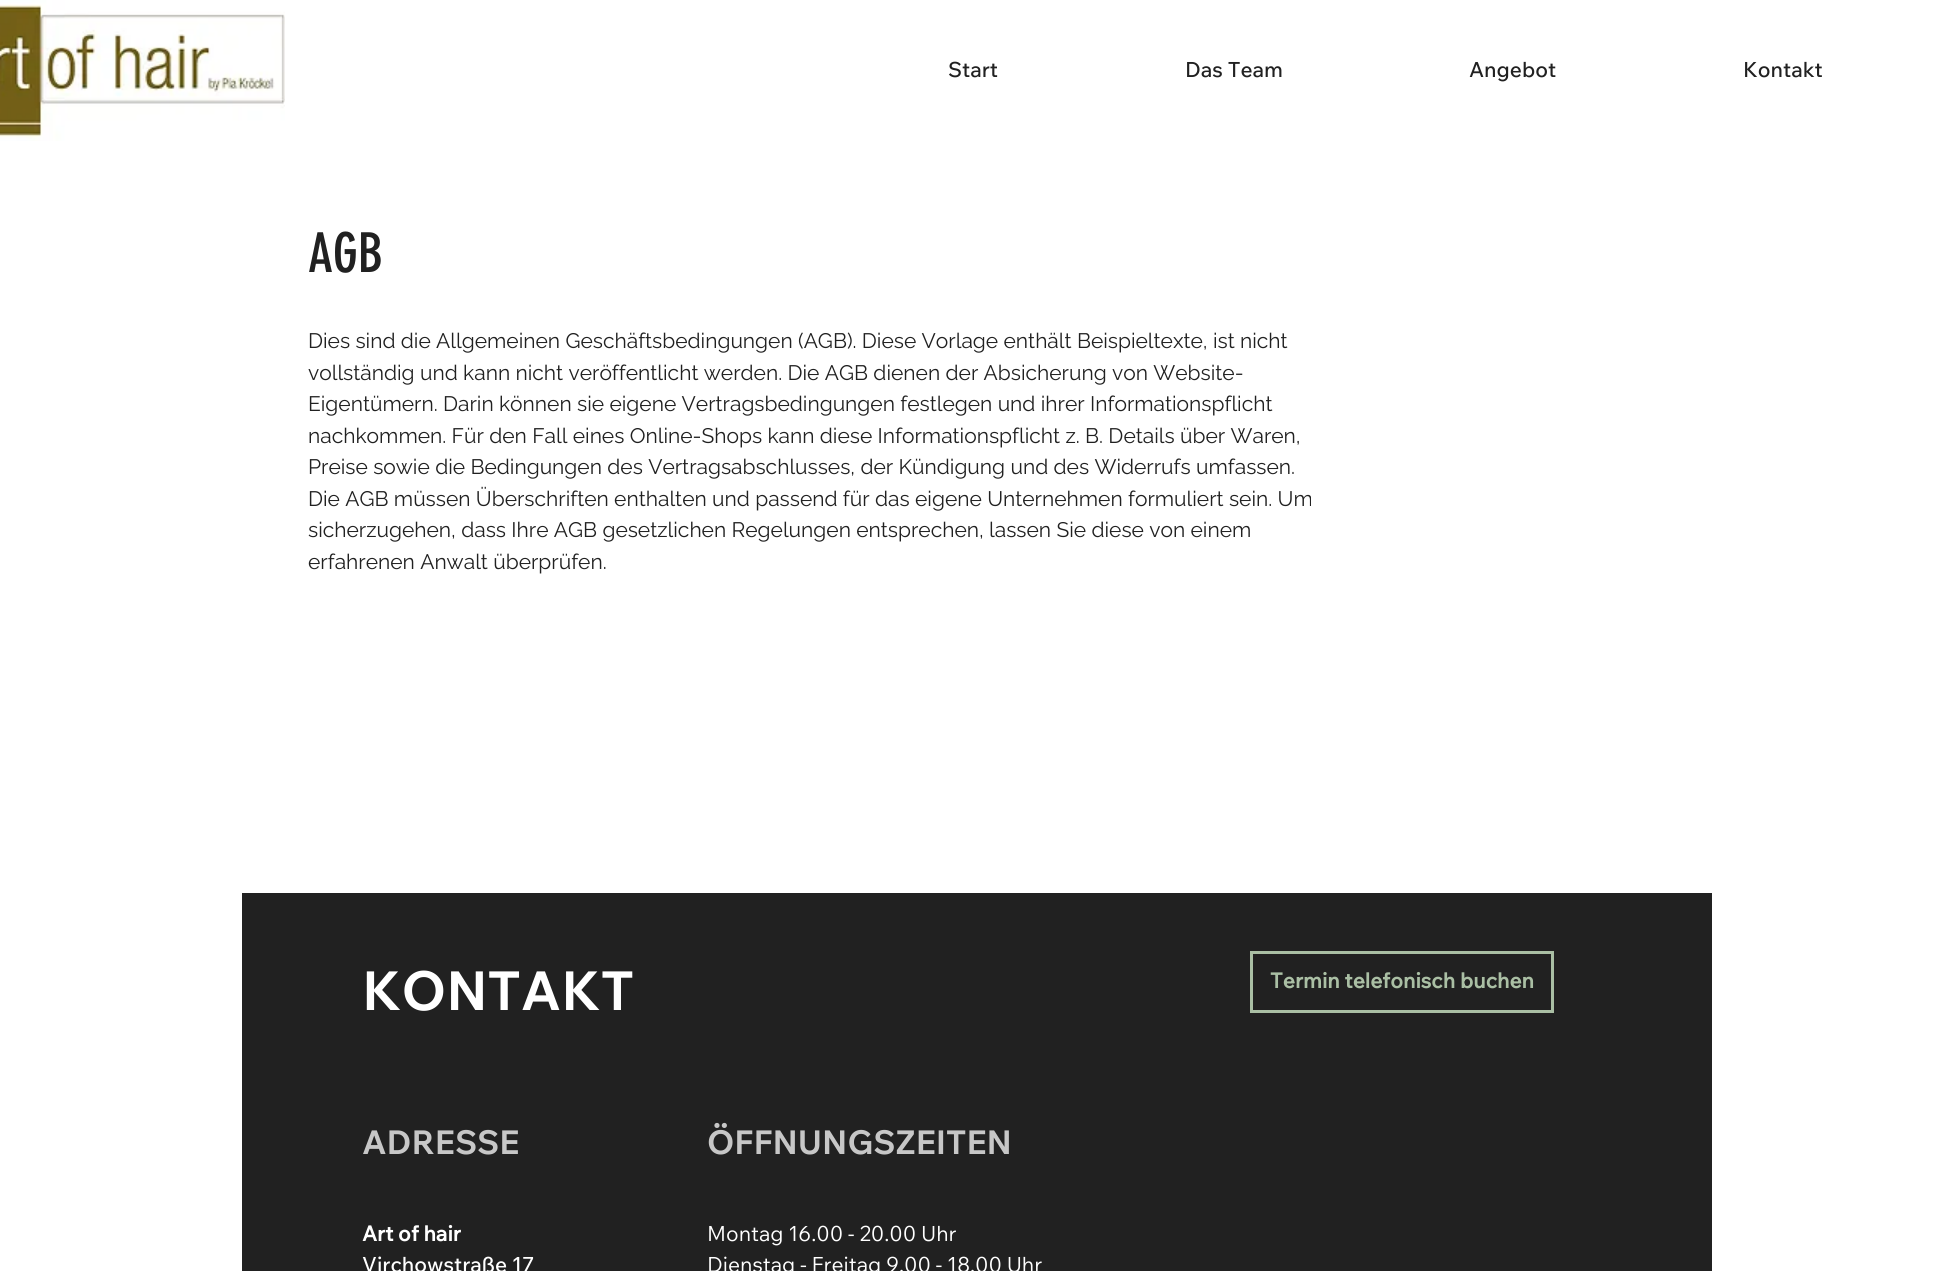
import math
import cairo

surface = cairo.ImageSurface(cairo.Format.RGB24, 1953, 1271)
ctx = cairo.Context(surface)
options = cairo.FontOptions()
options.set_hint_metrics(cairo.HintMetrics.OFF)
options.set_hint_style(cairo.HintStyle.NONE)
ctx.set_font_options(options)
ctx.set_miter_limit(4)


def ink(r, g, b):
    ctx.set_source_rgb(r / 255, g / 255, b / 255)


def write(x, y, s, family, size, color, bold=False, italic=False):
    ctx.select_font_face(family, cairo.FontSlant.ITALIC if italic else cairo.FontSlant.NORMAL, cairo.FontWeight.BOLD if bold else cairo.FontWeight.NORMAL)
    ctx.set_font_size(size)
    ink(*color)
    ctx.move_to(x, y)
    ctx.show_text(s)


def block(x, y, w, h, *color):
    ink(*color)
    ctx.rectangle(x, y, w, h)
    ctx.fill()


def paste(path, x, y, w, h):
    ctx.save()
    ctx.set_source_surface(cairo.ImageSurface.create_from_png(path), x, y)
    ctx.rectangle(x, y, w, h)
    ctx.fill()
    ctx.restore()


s1 = dict(family="Wix Madefor Text Medium", size=21, color=(33, 33, 33))
s2 = dict(family="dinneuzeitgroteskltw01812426", size=54, color=(33, 33, 33))
s3 = dict(family="Raleway", size=21, color=(33, 33, 33))
s4 = dict(family="Wix Madefor Text", size=54, color=(255, 255, 255), bold=True)
s5 = dict(family="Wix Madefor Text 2", size=21, color=(170, 191, 164), bold=True)
s6 = dict(family="Wix Madefor Text", size=33, color=(199, 199, 199), bold=True)
s7 = dict(family="Wix Madefor Text 2", size=21, color=(255, 255, 255), bold=True)
s8 = dict(family="Wix Madefor Text Medium", size=21, color=(255, 255, 255))
s9 = dict(family="Wix Madefor Text", size=21, color=(255, 255, 255))

ink(255, 255, 255)
ctx.paint()
paste("pic1.png", 0, 0, 285, 141)
write(948, 77, "Start", **s1)
write(1185, 77, "Das Team", **s1)
write(1469, 77, "Angebot", **s1)
write(1743, 77, "Kontakt", **s1)
write(308, 272, "AGB", **s2)
write(308, 348, "Dies sind die Allgemeinen Geschäftsbedingungen (AGB). Diese Vorlage enthält Beispieltexte, ist nicht", **s3)
write(308, 380, "vollständig und kann nicht veröffentlicht werden. Die AGB dienen der Absicherung von Website-", **s3)
write(308, 411, "Eigentümern. Darin können sie eigene Vertragsbedingungen festlegen und ihrer Informationspflicht", **s3)
write(308, 443, "nachkommen. Für den Fall eines Online-Shops kann diese Informationspflicht z. B. Details über Waren,", **s3)
write(308, 474, "Preise sowie die Bedingungen des Vertragsabschlusses, der Kündigung und des Widerrufs umfassen.", **s3)
write(308, 506, "Die AGB müssen Überschriften enthalten und passend für das eigene Unternehmen formuliert sein. Um", **s3)
write(308, 537, "sicherzugehen, dass Ihre AGB gesetzlichen Regelungen entsprechen, lassen Sie diese von einem", **s3)
write(308, 569, "erfahrenen Anwalt überprüfen.", **s3)
block(242, 893, 1470, 378, 33, 33, 33)
write(362, 1010, "KONTAKT", **s4)
ctx.rectangle(1251.5, 952.5, 301, 59)
ink(170, 191, 164)
ctx.set_line_width(3)
ctx.stroke()
write(1270, 988, "Termin telefonisch buchen", **s5)
write(362, 1154, "ADRESSE", **s6)
write(707, 1154, "ÖFFNUNGSZEITEN", **s6)
write(362, 1241, "Art of hair", **s7)
write(362, 1272, "Virchowstraße 17", **s8)
write(707, 1241, "Montag 16.00 - 20.00 Uhr", **s9)
write(707, 1272, "Dienstag - Freitag 9.00 - 18.00 Uhr", **s9)
surface.write_to_png("screenshot.png")
